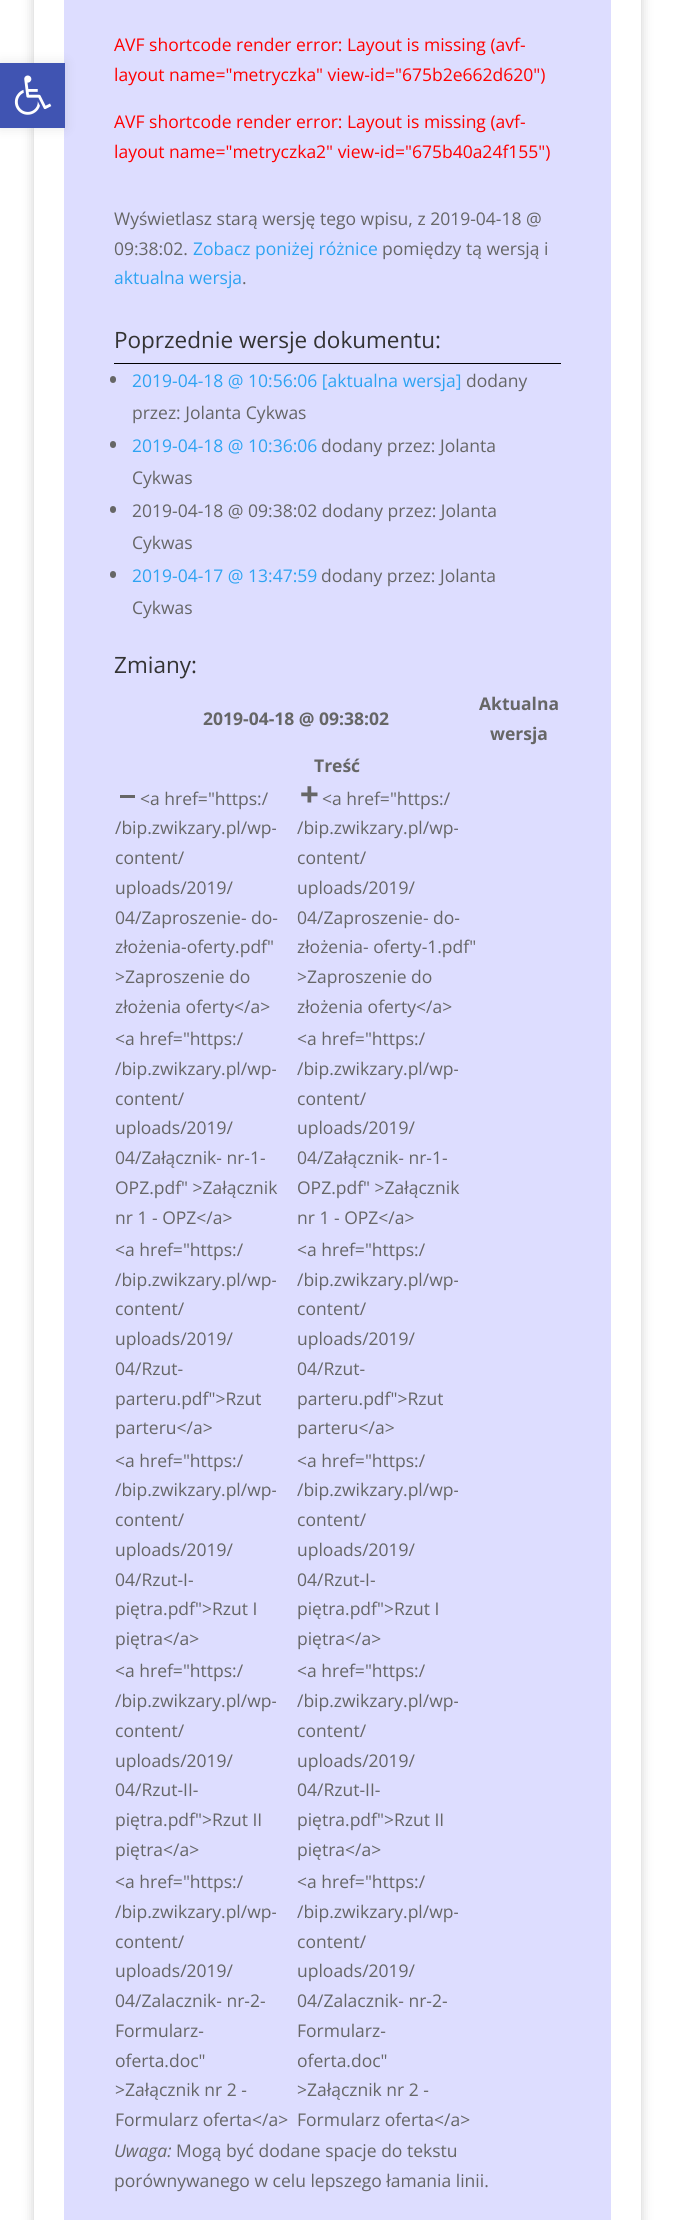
import math
import cairo

surface = cairo.ImageSurface(cairo.Format.RGB24, 674, 2220)
ctx = cairo.Context(surface)
options = cairo.FontOptions()
options.set_hint_metrics(cairo.HintMetrics.OFF)
options.set_hint_style(cairo.HintStyle.NONE)
ctx.set_font_options(options)
ctx.set_miter_limit(4)


def ink(r, g, b):
    ctx.set_source_rgb(r / 255, g / 255, b / 255)


def write(x, y, s, family, size, color, bold=False, italic=False):
    ctx.select_font_face(family, cairo.FontSlant.ITALIC if italic else cairo.FontSlant.NORMAL, cairo.FontWeight.BOLD if bold else cairo.FontWeight.NORMAL)
    ctx.set_font_size(size)
    ink(*color)
    ctx.move_to(x, y)
    ctx.show_text(s)


def block(x, y, w, h, *color):
    ink(*color)
    ctx.rectangle(x, y, w, h)
    ctx.fill()


def round_path(x, y, w, h, r):
    ctx.new_sub_path()
    for i, (u, v) in enumerate([(x + w - r, y + h - r), (x + r, y + h - r), (x + r, y + r), (x + w - r, y + r)]):
        ctx.arc(u, v, r, i * math.pi / 2, (i + 1) * math.pi / 2)
    ctx.close_path()


def blur_box(x, y, w, h, r, blur, alpha):
    ctx.push_group_with_content(cairo.Content.ALPHA)
    ctx.set_operator(cairo.Operator.SOURCE)
    for i in range(15, -16, -2):
        e = blur * i / 6
        if min(w, h) + 2 * e > 0:
            ctx.set_source_rgba(0, 0, 0, alpha * math.erfc((i - 1) / 8.5) / 2)
            round_path(x - e, y - e, w + 2 * e, h + 2 * e, max(0, min(r + e + blur * .6, min(w, h) / 2 + e)))
            ctx.fill()
    ctx.mask(ctx.pop_group())


def paste(path, x, y, w, h):
    ctx.save()
    ctx.set_source_surface(cairo.ImageSurface.create_from_png(path), x, y)
    ctx.rectangle(x, y, w, h)
    ctx.fill()
    ctx.restore()


s1 = dict(family="Open Sans", size=17.5, color=(255, 0, 0))
s2 = dict(family="Open Sans", size=17.5, color=(102, 102, 102))
s3 = dict(family="Open Sans", size=17.5, color=(46, 163, 242))
s4 = dict(family="Open Sans", size=22.5, color=(51, 51, 51))
s5 = dict(family="Open Sans", size=17.5, color=(102, 102, 102), bold=True)
s6 = dict(family="Open Sans", size=17.5, color=(102, 102, 102), italic=True)

ink(255, 255, 255)
ctx.paint()
ctx.save()
ctx.set_fill_rule(cairo.FillRule.EVEN_ODD)
ctx.new_path()
ctx.move_to(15, 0)
ctx.line_to(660, 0)
ctx.line_to(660, 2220)
ctx.line_to(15, 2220)
ctx.close_path()
ctx.move_to(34, -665)
ctx.line_to(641, -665)
ctx.line_to(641, 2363)
ctx.line_to(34, 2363)
ctx.close_path()
ctx.clip()
ink(0, 0, 0)
blur_box(34, -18, 607, 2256, 0, 6, 0.2)
ctx.restore()
block(64, 0, 547, 2220, 221, 221, 255)
ink(0, 0, 0)
blur_box(0, 63, 65, 65, 0, 6, 0.1)
block(0, 63, 65, 65, 64, 84, 178)
paste("pic1.png", 14, 75, 38, 40)
write(114, 51, "AVF shortcode render error: Layout is missing (avf-", **s1)
write(114, 81, "layout name=\"metryczka\" view-id=\"675b2e662d620\")", **s1)
write(114, 128, "AVF shortcode render error: Layout is missing (avf-", **s1)
write(114, 158, "layout name=\"metryczka2\" view-id=\"675b40a24f155\")", **s1)
write(114, 225, "Wyświetlasz starą wersję tego wpisu, z 2019-04-18 @", **s2)
write(114, 255, "09:38:02.", **s2)
write(193, 255, "Zobacz poniżej różnice", **s3)
write(382, 255, "pomiędzy tą wersją i", **s2)
write(114, 284, "aktualna wersja", **s3)
write(242, 284, ".", **s2)
block(114, 363, 447, 1, 0, 0, 0)
write(114, 348, "Poprzednie wersje dokumentu:", **s4)
ink(102, 102, 102)
round_path(110, 376, 6, 7, 3)
ctx.fill()
write(132, 387, "2019-04-18 @ 10:56:06 [aktualna wersja]", **s3)
write(466, 387, "dodany", **s2)
write(132, 419, "przez: Jolanta Cykwas", **s2)
round_path(110, 441, 6, 7, 3)
ctx.fill()
write(132, 452, "2019-04-18 @ 10:36:06", **s3)
write(321, 452, "dodany przez: Jolanta", **s2)
write(132, 484, "Cykwas", **s2)
round_path(110, 506, 6, 7, 3)
ctx.fill()
write(132, 517, "2019-04-18 @ 09:38:02 dodany przez: Jolanta", **s2)
write(132, 549, "Cykwas", **s2)
round_path(110, 571, 6, 7, 3)
ctx.fill()
write(132, 582, "2019-04-17 @ 13:47:59", **s3)
write(321, 582, "dodany przez: Jolanta", **s2)
write(132, 614, "Cykwas", **s2)
write(114, 673, "Zmiany:", **s4)
write(203, 725, "2019-04-18 @ 09:38:02", **s5)
write(479, 710, "Aktualna", **s5)
write(490, 740, "wersja", **s5)
write(314, 772, "Treść", **s5)
block(120, 795, 15, 3, 102, 102, 102)
write(140, 805, "<a href=\"https:/", **s2)
write(115, 834, "/bip.zwikzary.pl/wp-", **s2)
write(115, 864, "content/", **s2)
write(115, 894, "uploads/2019/", **s2)
write(115, 924, "04/Zaproszenie- do-", **s2)
write(115, 953, "złożenia-oferty.pdf\"", **s2)
write(115, 983, ">Zaproszenie do", **s2)
write(115, 1013, "złożenia oferty</a>", **s2)
paste("pic2.png", 301, 786, 17, 17)
write(322, 805, "<a href=\"https:/", **s2)
write(297, 834, "/bip.zwikzary.pl/wp-", **s2)
write(297, 864, "content/", **s2)
write(297, 894, "uploads/2019/", **s2)
write(297, 924, "04/Zaproszenie- do-", **s2)
write(297, 953, "złożenia- oferty-1.pdf\"", **s2)
write(297, 983, ">Zaproszenie do", **s2)
write(297, 1013, "złożenia oferty</a>", **s2)
write(115, 1045, "<a href=\"https:/", **s2)
write(115, 1075, "/bip.zwikzary.pl/wp-", **s2)
write(115, 1105, "content/", **s2)
write(115, 1134, "uploads/2019/", **s2)
write(115, 1164, "04/Załącznik- nr-1-", **s2)
write(115, 1194, "OPZ.pdf\" >Załącznik", **s2)
write(115, 1224, "nr 1 - OPZ</a>", **s2)
write(297, 1045, "<a href=\"https:/", **s2)
write(297, 1075, "/bip.zwikzary.pl/wp-", **s2)
write(297, 1105, "content/", **s2)
write(297, 1134, "uploads/2019/", **s2)
write(297, 1164, "04/Załącznik- nr-1-", **s2)
write(297, 1194, "OPZ.pdf\" >Załącznik", **s2)
write(297, 1224, "nr 1 - OPZ</a>", **s2)
write(115, 1256, "<a href=\"https:/", **s2)
write(115, 1286, "/bip.zwikzary.pl/wp-", **s2)
write(115, 1315, "content/", **s2)
write(115, 1345, "uploads/2019/", **s2)
write(115, 1375, "04/Rzut-", **s2)
write(115, 1405, "parteru.pdf\">Rzut", **s2)
write(115, 1434, "parteru</a>", **s2)
write(297, 1256, "<a href=\"https:/", **s2)
write(297, 1286, "/bip.zwikzary.pl/wp-", **s2)
write(297, 1315, "content/", **s2)
write(297, 1345, "uploads/2019/", **s2)
write(297, 1375, "04/Rzut-", **s2)
write(297, 1405, "parteru.pdf\">Rzut", **s2)
write(297, 1434, "parteru</a>", **s2)
write(115, 1467, "<a href=\"https:/", **s2)
write(115, 1496, "/bip.zwikzary.pl/wp-", **s2)
write(115, 1526, "content/", **s2)
write(115, 1556, "uploads/2019/", **s2)
write(115, 1586, "04/Rzut-I-", **s2)
write(115, 1615, "piętra.pdf\">Rzut I", **s2)
write(115, 1645, "piętra</a>", **s2)
write(297, 1467, "<a href=\"https:/", **s2)
write(297, 1496, "/bip.zwikzary.pl/wp-", **s2)
write(297, 1526, "content/", **s2)
write(297, 1556, "uploads/2019/", **s2)
write(297, 1586, "04/Rzut-I-", **s2)
write(297, 1615, "piętra.pdf\">Rzut I", **s2)
write(297, 1645, "piętra</a>", **s2)
write(115, 1677, "<a href=\"https:/", **s2)
write(115, 1707, "/bip.zwikzary.pl/wp-", **s2)
write(115, 1737, "content/", **s2)
write(115, 1767, "uploads/2019/", **s2)
write(115, 1796, "04/Rzut-II-", **s2)
write(115, 1826, "piętra.pdf\">Rzut II", **s2)
write(115, 1856, "piętra</a>", **s2)
write(297, 1677, "<a href=\"https:/", **s2)
write(297, 1707, "/bip.zwikzary.pl/wp-", **s2)
write(297, 1737, "content/", **s2)
write(297, 1767, "uploads/2019/", **s2)
write(297, 1796, "04/Rzut-II-", **s2)
write(297, 1826, "piętra.pdf\">Rzut II", **s2)
write(297, 1856, "piętra</a>", **s2)
write(115, 1888, "<a href=\"https:/", **s2)
write(115, 1918, "/bip.zwikzary.pl/wp-", **s2)
write(115, 1948, "content/", **s2)
write(115, 1977, "uploads/2019/", **s2)
write(115, 2007, "04/Zalacznik- nr-2-", **s2)
write(115, 2037, "Formularz-", **s2)
write(115, 2067, "oferta.doc\"", **s2)
write(115, 2096, ">Załącznik nr 2 -", **s2)
write(115, 2126, "Formularz oferta</a>", **s2)
write(297, 1888, "<a href=\"https:/", **s2)
write(297, 1918, "/bip.zwikzary.pl/wp-", **s2)
write(297, 1948, "content/", **s2)
write(297, 1977, "uploads/2019/", **s2)
write(297, 2007, "04/Zalacznik- nr-2-", **s2)
write(297, 2037, "Formularz-", **s2)
write(297, 2067, "oferta.doc\"", **s2)
write(297, 2096, ">Załącznik nr 2 -", **s2)
write(297, 2126, "Formularz oferta</a>", **s2)
write(114, 2157, "Uwaga:", **s6)
write(176, 2157, "Mogą być dodane spacje do tekstu", **s2)
write(114, 2187, "porównywanego w celu lepszego łamania linii.", **s2)
surface.write_to_png("screenshot.png")
